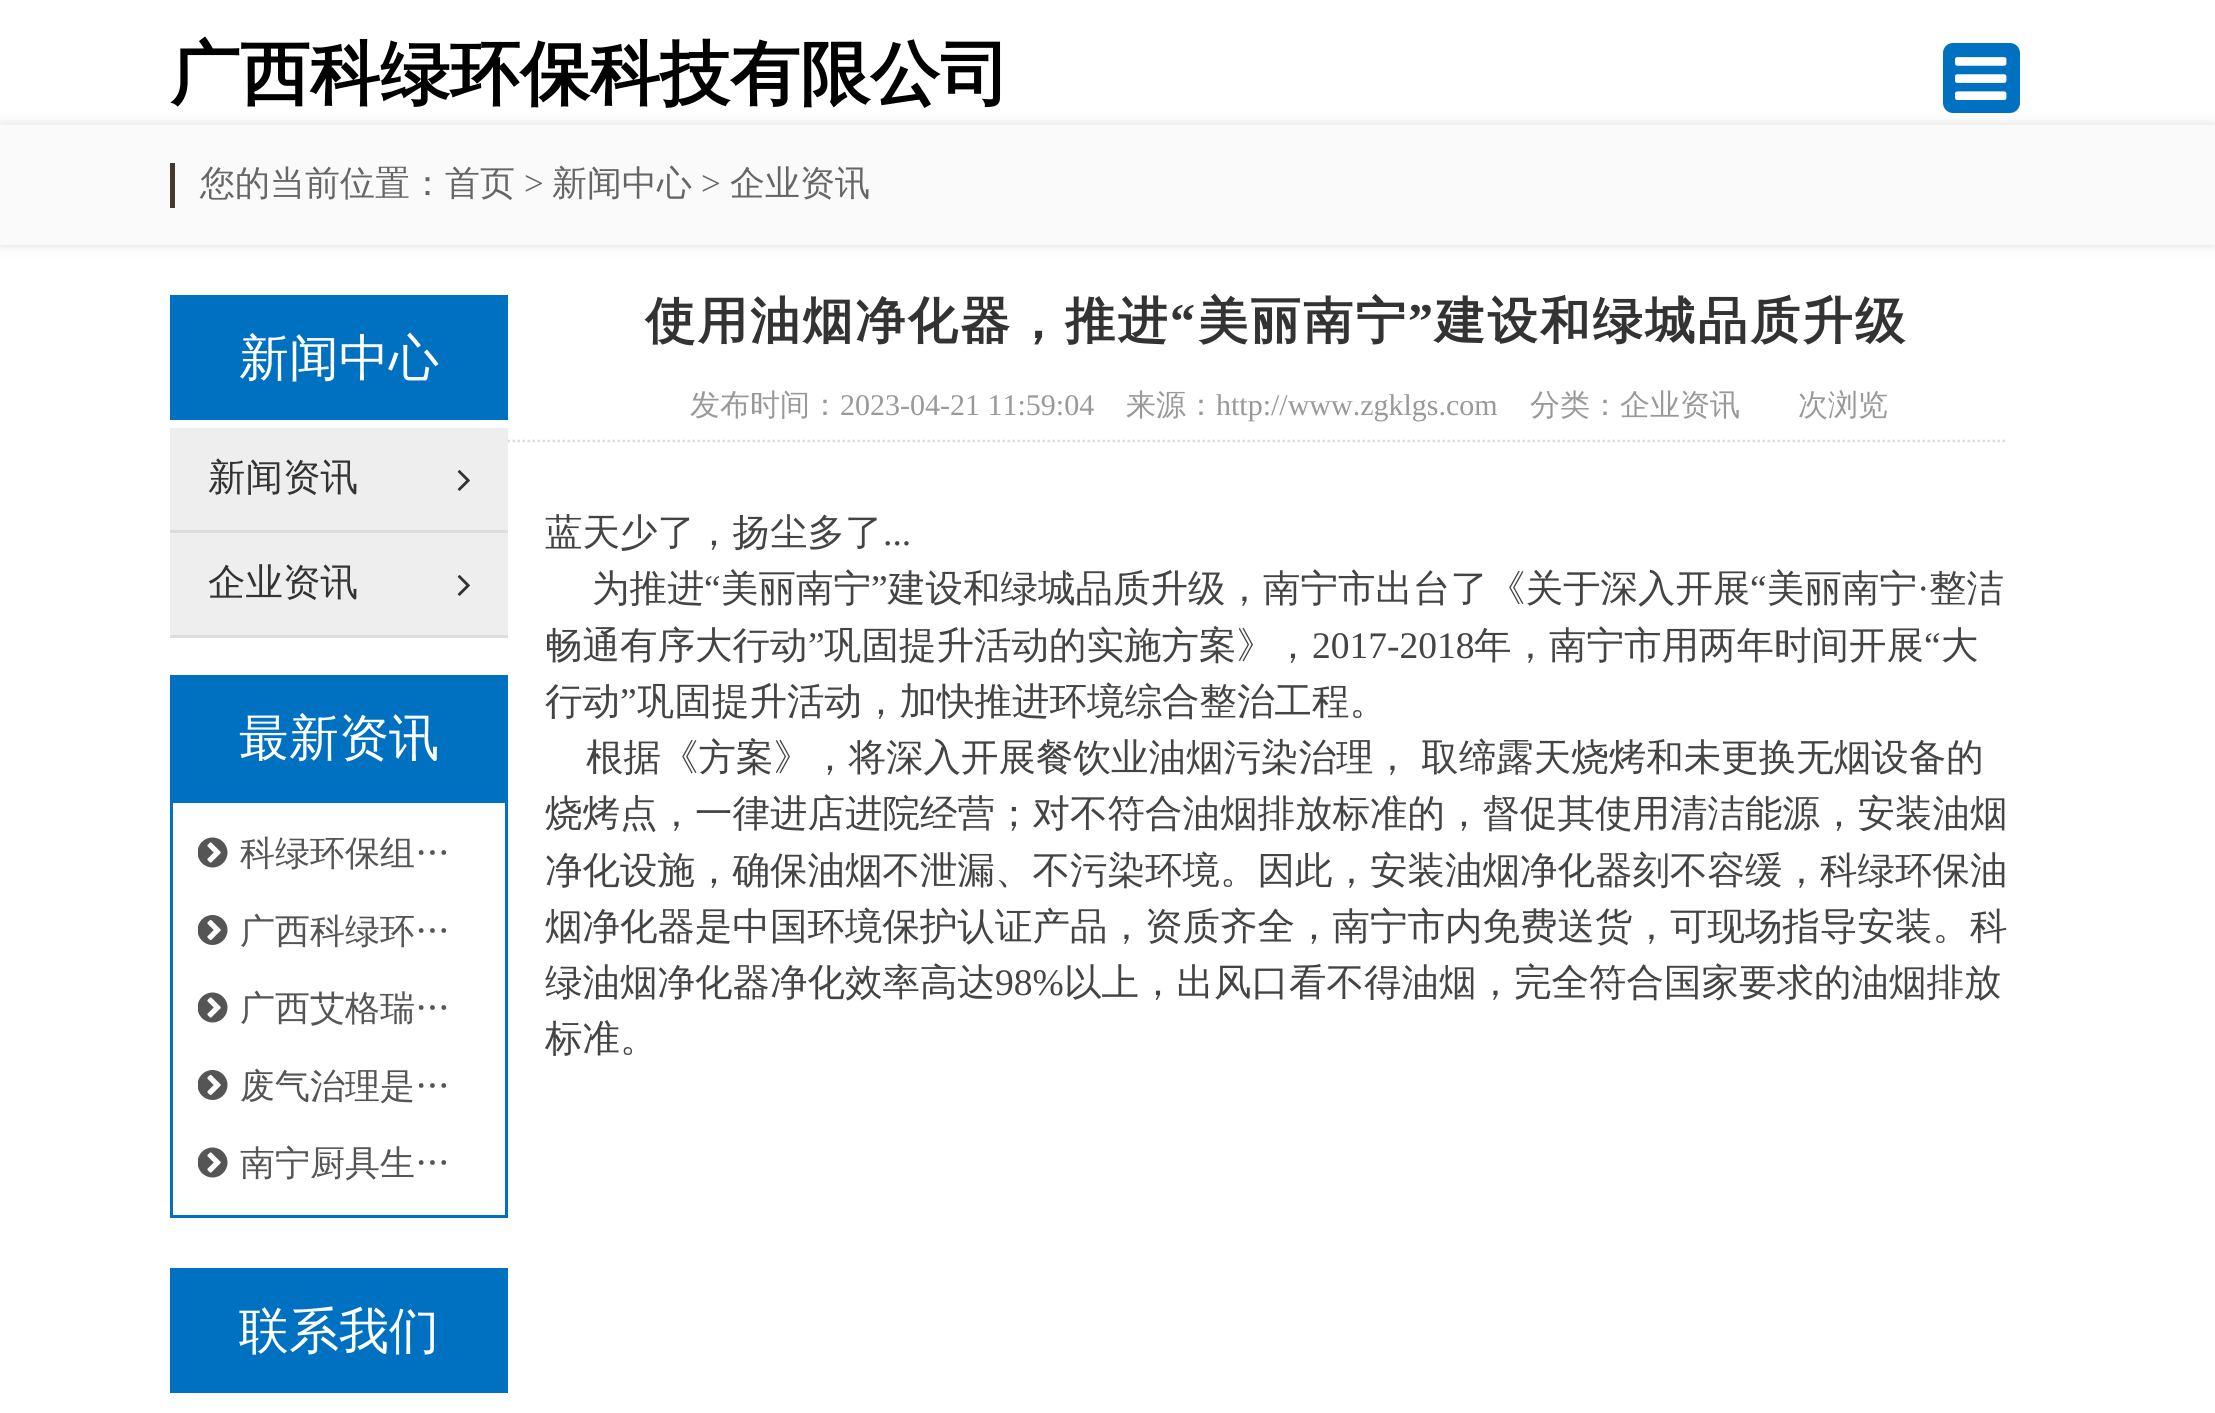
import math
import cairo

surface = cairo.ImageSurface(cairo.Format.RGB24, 2215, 1413)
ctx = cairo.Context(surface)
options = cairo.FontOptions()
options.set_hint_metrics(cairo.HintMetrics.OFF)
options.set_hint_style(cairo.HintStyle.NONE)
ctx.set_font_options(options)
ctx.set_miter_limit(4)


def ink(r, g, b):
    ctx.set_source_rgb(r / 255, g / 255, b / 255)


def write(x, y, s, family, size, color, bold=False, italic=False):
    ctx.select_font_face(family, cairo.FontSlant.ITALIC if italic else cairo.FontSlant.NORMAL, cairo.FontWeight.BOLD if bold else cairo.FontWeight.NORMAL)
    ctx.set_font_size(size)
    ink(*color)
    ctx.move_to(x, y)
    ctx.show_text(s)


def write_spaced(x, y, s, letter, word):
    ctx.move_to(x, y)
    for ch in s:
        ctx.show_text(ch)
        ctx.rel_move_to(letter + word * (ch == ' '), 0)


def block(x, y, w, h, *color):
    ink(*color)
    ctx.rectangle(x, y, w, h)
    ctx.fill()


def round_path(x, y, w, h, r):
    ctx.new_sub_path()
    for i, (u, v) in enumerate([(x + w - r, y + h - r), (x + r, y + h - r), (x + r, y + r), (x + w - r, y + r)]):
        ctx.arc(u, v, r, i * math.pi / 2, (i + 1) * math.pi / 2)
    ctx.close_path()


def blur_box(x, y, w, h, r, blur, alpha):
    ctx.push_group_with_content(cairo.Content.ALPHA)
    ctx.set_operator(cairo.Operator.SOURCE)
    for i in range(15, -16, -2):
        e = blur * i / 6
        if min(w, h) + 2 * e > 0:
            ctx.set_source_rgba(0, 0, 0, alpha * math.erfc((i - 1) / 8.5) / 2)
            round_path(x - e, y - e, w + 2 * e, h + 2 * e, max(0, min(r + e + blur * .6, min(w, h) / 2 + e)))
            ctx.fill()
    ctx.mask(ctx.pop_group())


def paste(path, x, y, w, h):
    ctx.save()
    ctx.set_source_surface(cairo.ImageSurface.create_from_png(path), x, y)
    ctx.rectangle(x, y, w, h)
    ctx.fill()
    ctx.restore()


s1 = dict(family="WenQuanYi Zen Hei", size=70, color=(0, 0, 0), bold=True)
s2 = dict(family="WenQuanYi Zen Hei Medium", size=35, color=(102, 102, 102))
s3 = dict(family="Liberation Serif", size=35, color=(102, 102, 102))
s4 = dict(family="WenQuanYi Zen Hei Medium", size=50, color=(255, 255, 255))
s5 = dict(family="WenQuanYi Zen Hei Medium", size=37.5, color=(51, 51, 51))
s6 = dict(family="WenQuanYi Zen Hei Medium", size=35, color=(85, 85, 85))
s7 = dict(family="WenQuanYi Zen Hei Medium", size=30, color=(153, 153, 153))
s8 = dict(family="Liberation Serif", size=30, color=(153, 153, 153))
s9 = dict(family="WenQuanYi Zen Hei Medium", size=37.5, color=(68, 68, 68))
s10 = dict(family="Liberation Serif", size=37.5, color=(68, 68, 68))

ink(255, 255, 255)
ctx.paint()
ink(221, 221, 221)
blur_box(0, 125, 2215, 120, 0, 6, 1)
write(170, 98, "广西科绿环保科技有限公司", **s1)
ink(0, 113, 193)
round_path(1943, 43, 77, 70, 10)
ctx.fill()
paste("pic1.png", 1955, 57, 52, 43)
block(0, 125, 2215, 120, 250, 250, 250)
block(170, 163, 5, 45, 68, 57, 42)
write(200, 195, "您的当前位置：首页", **s2)
write(524, 195, ">", **s3)
write(552, 195, "新闻中心", **s2)
write(701, 195, ">", **s3)
write(730, 195, "企业资讯", **s2)
block(170, 295, 338, 125, 0, 113, 193)
write(239, 375, "新闻中心", **s4)
ctx.new_path()
ctx.move_to(207.5, 441)
ctx.line_to(2007.5, 441)
ink(221, 221, 221)
ctx.set_line_width(2.5)
ctx.set_dash([2.5, 2.5])
ctx.stroke()
block(170, 428, 338, 102, 238, 238, 238)
block(170, 530, 338, 3, 221, 221, 221)
write(208, 490, "新闻资讯", **s5)
paste("pic2.png", 457, 470, 13, 21)
block(170, 533, 338, 102, 238, 238, 238)
block(170, 635, 338, 3, 221, 221, 221)
write(208, 595, "企业资讯", **s5)
paste("pic2.png", 457, 575, 13, 21)
block(170, 675, 338, 125, 0, 113, 193)
write(239, 755, "最新资讯", **s4)
ctx.rectangle(171.5, 801.5, 335, 415)
ink(0, 113, 193)
ctx.set_line_width(3)
ctx.set_dash([])
ctx.stroke()
paste("pic3.png", 198, 837, 30, 31)
write(240, 865, "科绿环保组…", **s6)
paste("pic4.png", 198, 915, 30, 30)
write(240, 943, "广西科绿环…", **s6)
paste("pic3.png", 198, 992, 30, 31)
write(240, 1020, "广西艾格瑞…", **s6)
paste("pic4.png", 198, 1070, 30, 30)
write(240, 1098, "废气治理是…", **s6)
paste("pic3.png", 198, 1147, 30, 31)
write(240, 1175, "南宁厨具生…", **s6)
block(170, 1268, 338, 125, 0, 113, 193)
write(239, 1348, "联系我们", **s4)
ctx.select_font_face("WenQuanYi Zen Hei", cairo.FontSlant.NORMAL, cairo.FontWeight.BOLD)
ink(51, 51, 51)
write_spaced(645, 338, "使用油烟净化器，推进", 2.5, 0)
ctx.select_font_face("Liberation Serif", cairo.FontSlant.NORMAL, cairo.FontWeight.BOLD)
write_spaced(1170, 338, "“", 2.5, 0)
ctx.select_font_face("WenQuanYi Zen Hei", cairo.FontSlant.NORMAL, cairo.FontWeight.BOLD)
write_spaced(1198, 338, "美丽南宁", 2.5, 0)
ctx.select_font_face("Liberation Serif", cairo.FontSlant.NORMAL, cairo.FontWeight.BOLD)
write_spaced(1408, 338, "”", 2.5, 0)
ctx.select_font_face("WenQuanYi Zen Hei", cairo.FontSlant.NORMAL, cairo.FontWeight.BOLD)
write_spaced(1435, 338, "建设和绿城品质升级", 2.5, 0)
write(690, 415, "发布时间：", **s7)
write(840, 415, "2023-04-21 11:59:04", **s8)
write(1126, 415, "来源：", **s7)
write(1216, 415, "http://www.zgklgs.com", **s8)
write(1530, 415, "分类：企业资讯", **s7)
write(1798, 415, "次浏览", **s7)
write(545, 545, "蓝天少了，扬尘多了", **s9)
write(883, 545, "...", **s10)
write(592, 601, "为推进", **s9)
write(704, 601, "“", **s10)
write(721, 601, "美丽南宁", **s9)
write(871, 601, "”", **s10)
write(888, 601, "建设和绿城品质升级，南宁市出台了《关于深入开展", **s9)
write(1750, 601, "“", **s10)
write(1767, 601, "美丽南宁", **s9)
write(1929, 601, "整洁", **s9)
write(1917, 601, "·", **s10)
write(545, 658, "畅通有序大行动", **s9)
write(808, 658, "”", **s10)
write(824, 658, "巩固提升活动的实施方案》，", **s9)
write(1312, 658, "2017-2018", **s10)
write(1474, 658, "年，南宁市用两年时间开展", **s9)
write(1924, 658, "“", **s10)
write(1941, 658, "大", **s9)
write(545, 714, "行动", **s9)
write(620, 714, "”", **s10)
write(637, 714, "巩固提升活动，加快推进环境综合整治工程。", **s9)
write_spaced(586, 770, "根据《方案》，将深入开展餐饮业油烟污染治理， 取缔露天烧烤和未更换无烟设备的", 0, -1)
write(545, 826, "烧烤点，一律进店进院经营；对不符合油烟排放标准的，督促其使用清洁能源，安装油烟", **s9)
write(545, 883, "净化设施，确保油烟不泄漏、不污染环境。因此，安装油烟净化器刻不容缓，科绿环保油", **s9)
write(545, 939, "烟净化器是中国环境保护认证产品，资质齐全，南宁市内免费送货，可现场指导安装。科", **s9)
write(545, 995, "绿油烟净化器净化效率高达", **s9)
write(995, 995, "98%", **s10)
write(1064, 995, "以上，出风口看不得油烟，完全符合国家要求的油烟排放", **s9)
write(545, 1051, "标准。", **s9)
surface.write_to_png("screenshot.png")
